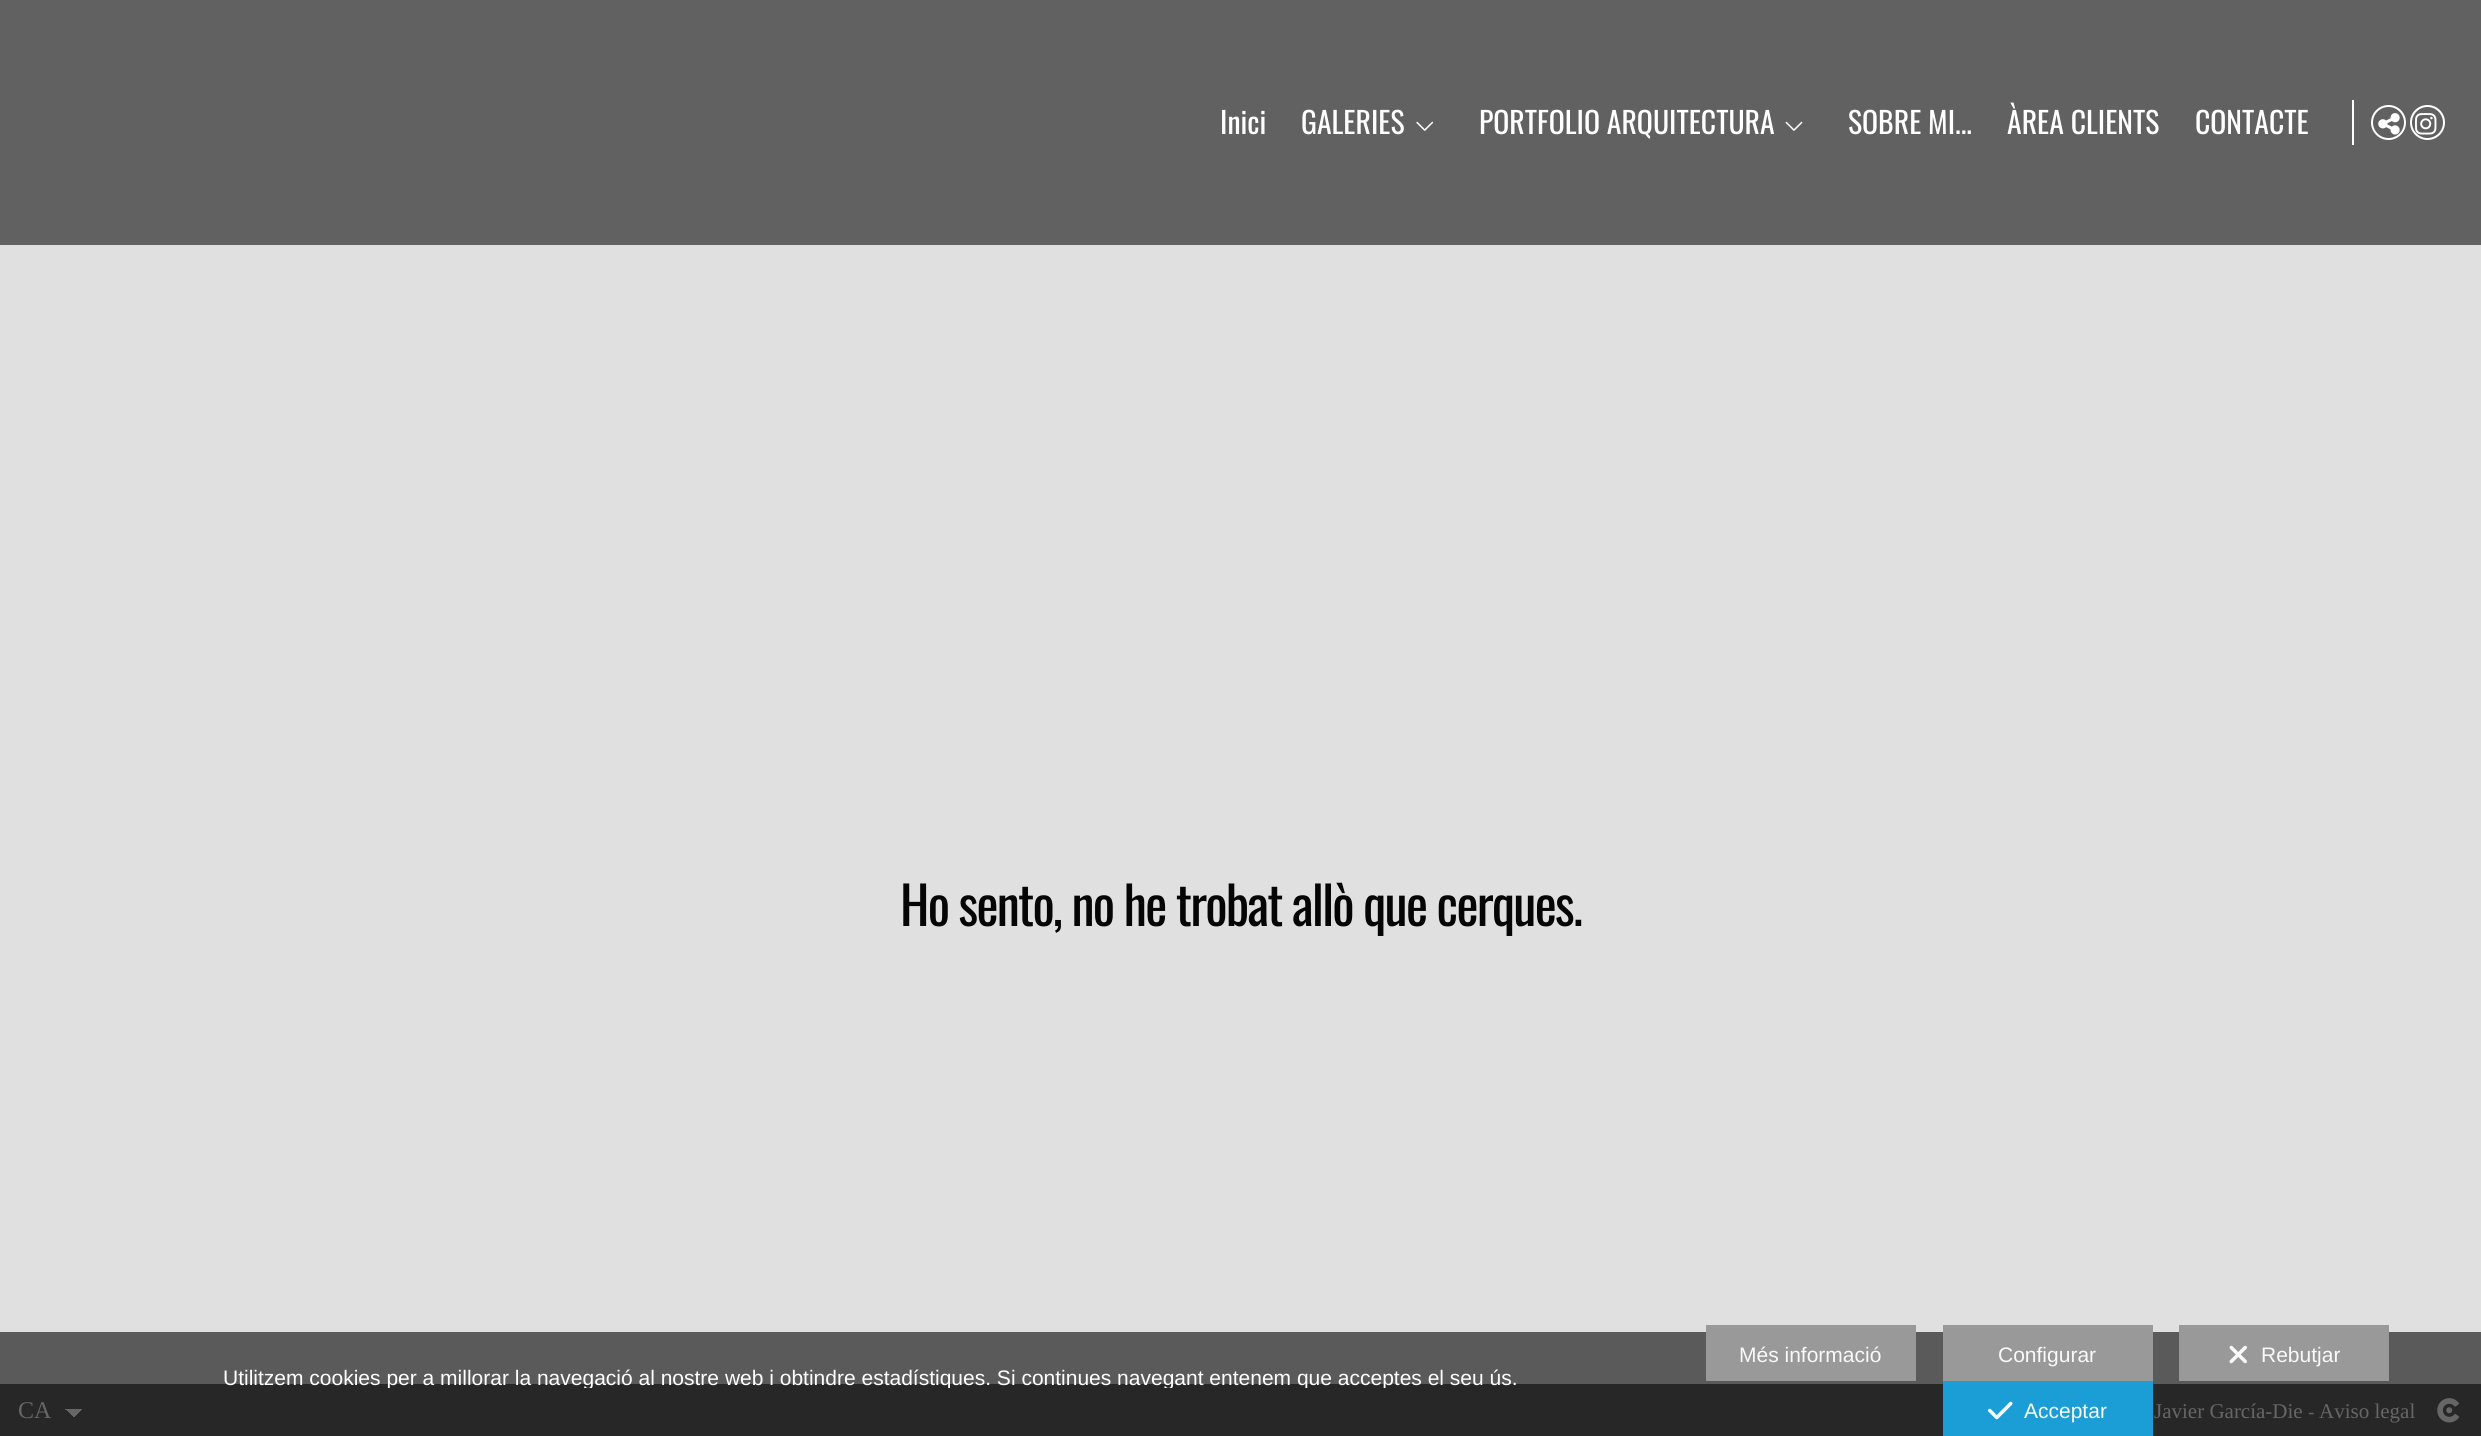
import math
import cairo

surface = cairo.ImageSurface(cairo.Format.RGB24, 2481, 1436)
ctx = cairo.Context(surface)
options = cairo.FontOptions()
options.set_hint_metrics(cairo.HintMetrics.OFF)
options.set_hint_style(cairo.HintStyle.NONE)
ctx.set_font_options(options)
ctx.set_miter_limit(4)


def ink(r, g, b):
    ctx.set_source_rgb(r / 255, g / 255, b / 255)


def write(x, y, s, family, size, color, bold=False, italic=False):
    ctx.select_font_face(family, cairo.FontSlant.ITALIC if italic else cairo.FontSlant.NORMAL, cairo.FontWeight.BOLD if bold else cairo.FontWeight.NORMAL)
    ctx.set_font_size(size)
    ink(*color)
    ctx.move_to(x, y)
    ctx.show_text(s)


def write_spaced(x, y, s, letter, word):
    ctx.move_to(x, y)
    for ch in s:
        ctx.show_text(ch)
        ctx.rel_move_to(letter + word * (ch == ' '), 0)


def block(x, y, w, h, *color):
    ink(*color)
    ctx.rectangle(x, y, w, h)
    ctx.fill()


def paste(path, x, y, w, h):
    ctx.save()
    ctx.set_source_surface(cairo.ImageSurface.create_from_png(path), x, y)
    ctx.rectangle(x, y, w, h)
    ctx.fill()
    ctx.restore()


s1 = dict(family="Oswald", size=29.75, color=(255, 255, 255))
s2 = dict(family="Liberation Serif", size=24, color=(102, 102, 102))
s3 = dict(family="Liberation Serif", size=21, color=(102, 102, 102))
s4 = dict(family="Liberation Serif", size=19, color=(102, 102, 102))
s5 = dict(family="Liberation Sans", size=21, color=(255, 255, 255))
s6 = dict(family="Liberation Sans", size=21, color=(249, 249, 249))

ink(224, 224, 224)
ctx.paint()
block(0, 1332, 2481, 52, 90, 90, 90)
block(0, 0, 2481, 245, 97, 97, 97)
write(1220, 134, "Inici", **s1)
write(1301, 134, "GALERIES", **s1)
paste("pic1.png", 1416, 121, 18, 10)
write(1479, 134, "PORTFOLIO ARQUITECTURA", **s1)
paste("pic2.png", 1785, 121, 18, 10)
write(1848, 134, "SOBRE MI...", **s1)
write(2007, 134, "ÀREA CLIENTS", **s1)
write(2195, 134, "CONTACTE", **s1)
block(2352, 100, 2, 45, 255, 255, 255)
ctx.new_path()
ctx.arc(2388.5, 122.5, 16.5, 0, 2 * math.pi)
ctx.stroke()
paste("pic3.png", 2378, 113, 22, 22)
ctx.arc(2427.5, 122.5, 16.5, 0, 2 * math.pi)
ctx.stroke()
paste("pic4.png", 2415, 113, 22, 22)
ctx.set_font_size(52.5)
ink(5, 5, 5)
write_spaced(900, 926, "Ho sento, no he trobat allò que cerques.", -1.75, 0)
block(0, 1384, 2481, 52, 39, 39, 39)
gradient = cairo.LinearGradient(74, 1409, 82, 1418)
gradient.add_color_stop_rgba(0.5, 0.4, 0.4, 0.4, 1)
gradient.add_color_stop_rgba(0.5, 0.153, 0.153, 0.153, 1)
ctx.set_source(gradient)
ctx.rectangle(74, 1409, 8, 9)
ctx.fill()
gradient = cairo.LinearGradient(65, 1418, 74, 1409)
gradient.add_color_stop_rgba(0.5, 0.153, 0.153, 0.153, 1)
gradient.add_color_stop_rgba(0.5, 0.4, 0.4, 0.4, 1)
ctx.set_source(gradient)
ctx.rectangle(65, 1409, 9, 8)
ctx.fill()
write(18, 1418, "CA", **s2)
write(2154, 1418, "Javier García-Die", **s3)
write(2308, 1418, "-", **s4)
write(2319, 1418, "Aviso legal", **s3)
paste("pic5.png", 2437, 1398, 23, 25)
ctx.save()
ctx.rectangle(0, 1353, 1614, 35)
ctx.clip()
write(223, 1385, "Utilitzem cookies per a millorar la navegació al nostre web i obtindre estadístiques. Si continues navegant entenem que acceptes el seu ús.", **s5)
ctx.restore()
block(1706, 1325, 210, 56, 153, 153, 153)
write(1739, 1362, "Més informació", **s6)
block(1943, 1325, 210, 56, 153, 153, 153)
write(1998, 1362, "Configurar", **s6)
block(2179, 1325, 210, 56, 153, 153, 153)
paste("pic6.png", 2229, 1345, 18, 19)
write(2261, 1362, "Rebutjar", **s6)
block(1943, 1381, 210, 55, 26, 158, 213)
paste("pic7.png", 1988, 1401, 25, 19)
write(2024, 1418, "Acceptar", **s6)
surface.write_to_png("screenshot.png")
